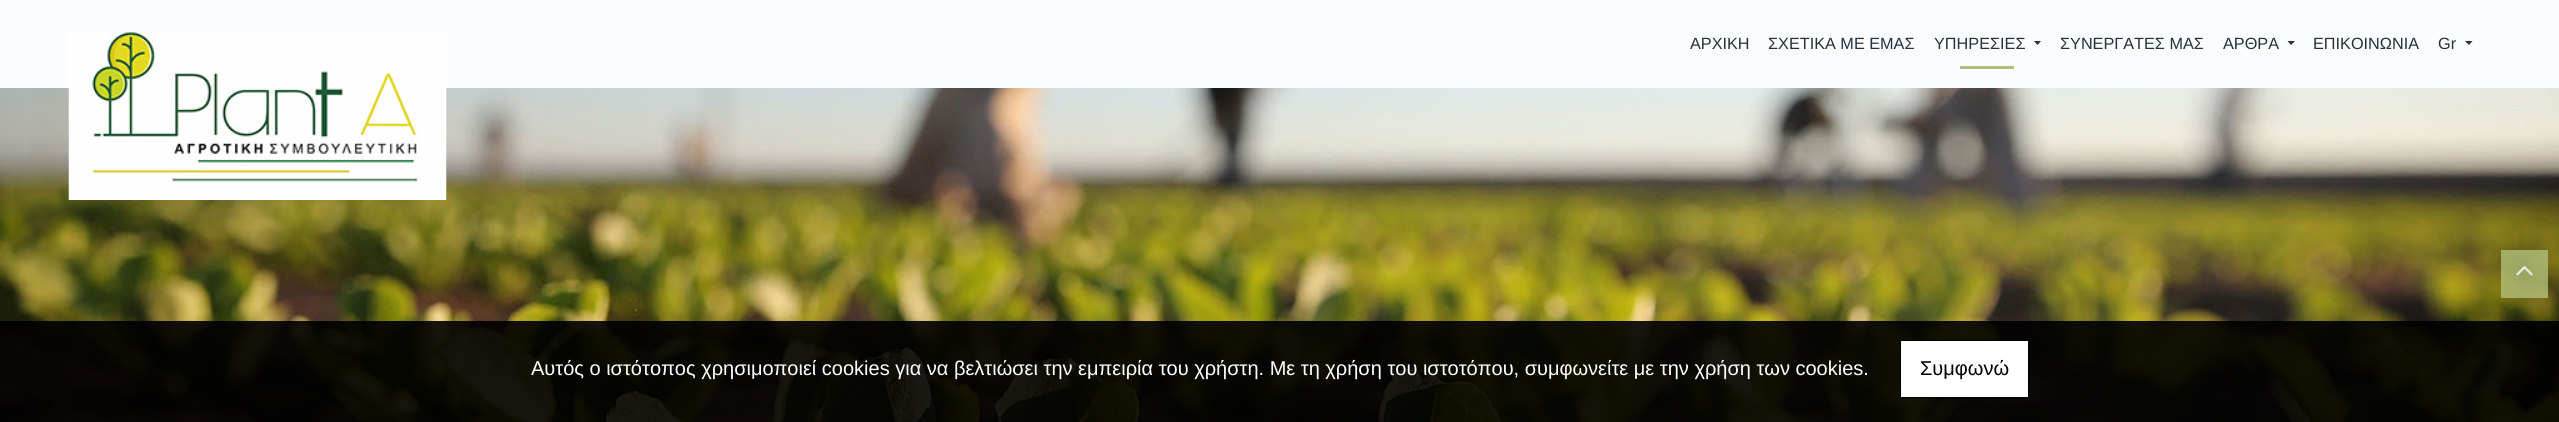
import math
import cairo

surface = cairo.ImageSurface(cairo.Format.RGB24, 2559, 422)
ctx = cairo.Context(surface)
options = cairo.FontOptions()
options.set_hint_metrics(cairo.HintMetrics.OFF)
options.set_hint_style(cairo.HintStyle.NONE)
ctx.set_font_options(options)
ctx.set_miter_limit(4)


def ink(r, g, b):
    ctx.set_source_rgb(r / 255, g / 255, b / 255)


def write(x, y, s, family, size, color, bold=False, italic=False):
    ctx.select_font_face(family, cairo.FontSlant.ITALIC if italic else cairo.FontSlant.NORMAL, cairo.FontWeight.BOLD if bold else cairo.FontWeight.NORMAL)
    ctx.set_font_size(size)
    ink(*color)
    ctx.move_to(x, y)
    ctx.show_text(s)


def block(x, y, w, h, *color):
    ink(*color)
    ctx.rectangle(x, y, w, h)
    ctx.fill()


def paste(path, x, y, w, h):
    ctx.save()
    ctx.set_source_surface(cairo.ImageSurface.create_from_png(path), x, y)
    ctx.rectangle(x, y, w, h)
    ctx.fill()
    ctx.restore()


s1 = dict(family="Arimo", size=16.25, color=(37, 50, 61))
s2 = dict(family="Arimo", size=20, color=(255, 255, 255))
s3 = dict(family="Arimo", size=20, color=(0, 0, 0))

ink(255, 255, 255)
ctx.paint()
block(0, 0, 2559, 88, 251, 252, 253)
paste("pic2.png", 0, 88, 2559, 334)
paste("pic1.png", 68, 32, 379, 168)
write(1690, 49, "ΑΡΧΙΚΗ", **s1)
write(1768, 49, "ΣΧΕΤΙΚΑ ΜΕ ΕΜΑΣ", **s1)
write(1934, 49, "ΥΠΗΡΕΣΙΕΣ", **s1)
ctx.new_path()
ctx.move_to(2034, 41)
ctx.line_to(2041, 41)
ctx.line_to(2037.5, 45)
ctx.close_path()
ctx.fill()
block(1960, 66, 54, 3, 176, 191, 122)
write(2060, 49, "ΣΥΝΕΡΓΑΤΕΣ ΜΑΣ", **s1)
write(2223, 49, "ΑΡΘΡΑ", **s1)
ctx.new_path()
ctx.move_to(2287.5, 41)
ctx.line_to(2295, 41)
ctx.line_to(2291, 45)
ctx.close_path()
ctx.fill()
write(2313, 49, "ΕΠΙΚΟΙΝΩΝΙΑ", **s1)
write(2438, 49, "Gr", **s1)
ctx.new_path()
ctx.move_to(2465, 41)
ctx.line_to(2472.5, 41)
ctx.line_to(2469, 45)
ctx.close_path()
ctx.fill()
ctx.set_source_rgba(0.69, 0.749, 0.478, 0.8)
ctx.rectangle(2501, 250, 47, 48)
ctx.fill()
paste("pic3.png", 2516, 266, 17, 10)
ctx.set_source_rgba(0, 0, 0, 0.9)
ctx.rectangle(0, 321, 2559, 101)
ctx.fill()
write(531, 375, "Αυτός ο ιστότοπος χρησιμοποιεί cookies για να βελτιώσει την εμπειρία του χρήστη. Με τη χρήση του ιστοτόπου, συμφωνείτε με την χρήση των cookies.", **s2)
ctx.rectangle(1900.5, 340.5, 128, 57)
ctx.fill_preserve()
ink(0, 0, 0)
ctx.set_line_width(1)
ctx.stroke()
write(1920, 375, "Συμφωνώ", **s3)
surface.write_to_png("screenshot.png")
